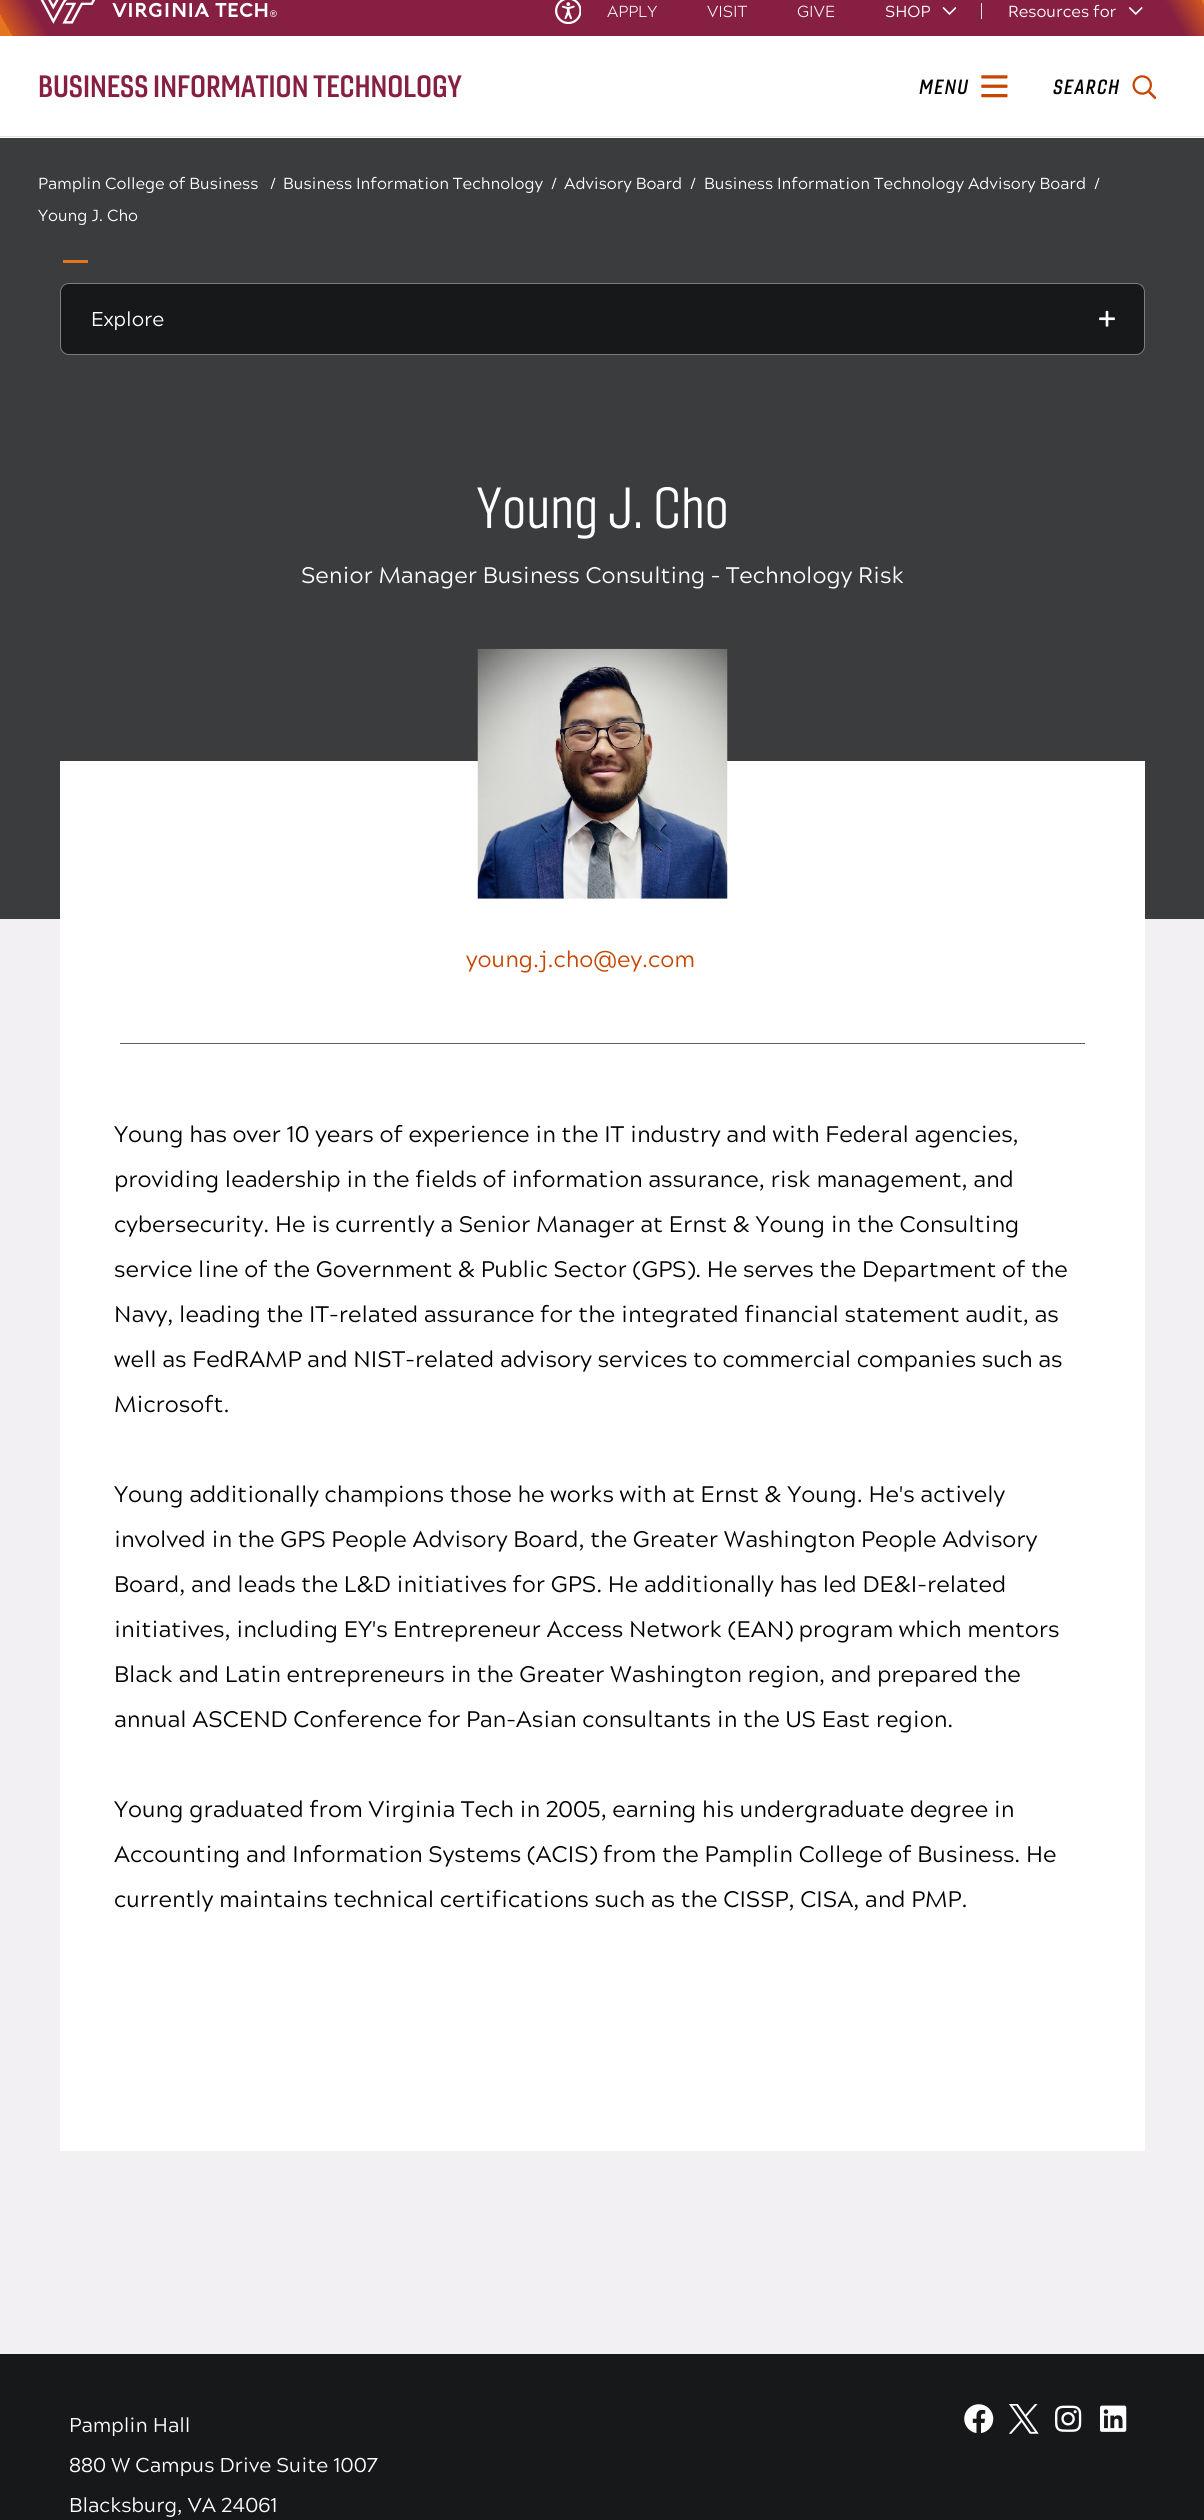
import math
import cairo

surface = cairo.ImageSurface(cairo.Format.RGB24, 1204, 2520)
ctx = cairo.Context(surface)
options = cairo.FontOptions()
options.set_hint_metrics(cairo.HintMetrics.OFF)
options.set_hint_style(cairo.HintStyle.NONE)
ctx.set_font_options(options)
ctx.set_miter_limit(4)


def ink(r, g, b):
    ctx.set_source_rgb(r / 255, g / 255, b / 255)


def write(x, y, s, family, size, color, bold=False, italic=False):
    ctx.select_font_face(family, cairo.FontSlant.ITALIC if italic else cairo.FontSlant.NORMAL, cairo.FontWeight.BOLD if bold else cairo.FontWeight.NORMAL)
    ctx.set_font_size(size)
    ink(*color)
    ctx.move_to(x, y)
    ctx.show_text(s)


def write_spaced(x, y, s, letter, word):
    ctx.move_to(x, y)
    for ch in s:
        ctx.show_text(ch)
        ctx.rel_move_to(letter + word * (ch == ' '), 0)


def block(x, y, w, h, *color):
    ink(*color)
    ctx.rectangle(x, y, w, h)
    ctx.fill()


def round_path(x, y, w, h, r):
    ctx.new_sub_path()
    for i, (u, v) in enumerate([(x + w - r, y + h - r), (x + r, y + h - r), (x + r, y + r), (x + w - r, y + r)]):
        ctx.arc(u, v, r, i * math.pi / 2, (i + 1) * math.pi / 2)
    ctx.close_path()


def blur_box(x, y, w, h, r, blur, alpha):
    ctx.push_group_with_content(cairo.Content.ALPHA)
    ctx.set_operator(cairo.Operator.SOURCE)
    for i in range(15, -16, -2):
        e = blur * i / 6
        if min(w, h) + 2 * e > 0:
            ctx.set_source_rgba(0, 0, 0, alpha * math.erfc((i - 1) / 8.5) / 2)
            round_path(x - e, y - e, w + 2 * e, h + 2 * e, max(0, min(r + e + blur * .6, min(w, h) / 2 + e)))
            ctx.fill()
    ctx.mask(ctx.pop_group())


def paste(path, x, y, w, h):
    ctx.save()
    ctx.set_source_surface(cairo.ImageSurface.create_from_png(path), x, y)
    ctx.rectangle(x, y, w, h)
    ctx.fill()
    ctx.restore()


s1 = dict(family="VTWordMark", size=20, color=(255, 255, 255))
s2 = dict(family="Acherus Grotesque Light", size=16, color=(255, 255, 255))
s3 = dict(family="Acherus Grotesque", size=16, color=(255, 255, 255))
s4 = dict(family="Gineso", size=30, color=(134, 31, 65), bold=True)
s5 = dict(family="Acherus Grotesque", size=20, color=(255, 255, 255))
s6 = dict(family="Gineso", size=56.25, color=(255, 255, 255))
s7 = dict(family="Acherus Grotesque", size=22.5, color=(255, 255, 255))
s8 = dict(family="Acherus Grotesque", size=22.5, color=(198, 70, 0))
s9 = dict(family="Acherus Grotesque", size=22.5, color=(0, 0, 0))

ink(255, 255, 255)
ctx.paint()
ctx.save()
ctx.set_fill_rule(cairo.FillRule.EVEN_ODD)
ctx.new_path()
ctx.move_to(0, 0)
ctx.line_to(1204, 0)
ctx.line_to(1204, 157)
ctx.line_to(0, 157)
ctx.close_path()
ctx.move_to(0, -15)
ctx.line_to(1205, -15)
ctx.line_to(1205, 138)
ctx.line_to(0, 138)
ctx.close_path()
ctx.clip()
ink(229, 225, 230)
blur_box(0, -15, 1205, 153, 0, 6, 1)
ctx.restore()
block(0, 136, 1204, 1, 229, 225, 230)
gradient = cairo.LinearGradient(140, 278, 1065, -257)
gradient.add_color_stop_rgba(0.01, 0.898, 0.459, 0.122, 1)
gradient.add_color_stop_rgba(0.01, 0.82, 0.341, 0.122, 1)
gradient.add_color_stop_rgba(0.04, 0.525, 0.122, 0.255, 1)
gradient.add_color_stop_rgba(0.96, 0.525, 0.122, 0.255, 1)
gradient.add_color_stop_rgba(0.99, 0.82, 0.341, 0.122, 1)
gradient.add_color_stop_rgba(0.99, 0.898, 0.459, 0.122, 1)
ctx.set_source(gradient)
ctx.rectangle(0, 0, 1204, 36)
ctx.fill()
paste("pic1.png", 40, 0, 56, 24)
write(112, 17, "VIRGINIA TECH®", **s1)
paste("pic2.png", 555, 0, 26, 24)
write(607, 17, "APPLY", **s2)
write(707, 17, "VISIT", **s2)
write(797, 17, "GIVE", **s2)
write(885, 17, "SHOP", **s3)
paste("pic3.png", 942, 7, 14, 8)
block(981, 3, 1, 16, 229, 225, 230)
write(1008, 17, "Resources for", **s3)
paste("pic4.png", 1128, 7, 15, 8)
write(38, 97, "BUSINESS INFORMATION TECHNOLOGY", **s4)
ctx.select_font_face("Gineso", cairo.FontSlant.ITALIC, cairo.FontWeight.BOLD)
ctx.set_font_size(20)
ink(0, 0, 0)
write_spaced(919, 94, "MENU", 1.5, 0)
paste("pic5.png", 981, 75, 27, 23)
write_spaced(1053, 94, "SEARCH", 1.5, 0)
paste("pic6.png", 1132, 75, 24, 25)
block(0, 138, 1204, 781, 59, 60, 62)
write(38, 189, "Pamplin College of Business", **s3)
write(270, 189, "/", **s3)
write(283, 189, "Business Information Technology", **s3)
write(551, 189, "/", **s3)
write(564, 189, "Advisory Board", **s3)
write(690, 189, "/", **s3)
write(704, 189, "Business Information Technology Advisory Board", **s3)
write(1094, 189, "/", **s3)
write(38, 221, "Young J. Cho", **s3)
block(63, 260, 25, 3, 229, 117, 31)
ink(23, 24, 25)
round_path(60, 283, 1085, 72, 9)
ctx.fill()
round_path(60.5, 283.5, 1084, 71, 8.5)
ctx.set_source_rgba(0.898, 0.882, 0.902, 0.5)
ctx.set_line_width(1)
ctx.stroke()
write(91, 326, "Explore", **s5)
paste("pic7.png", 1099, 310, 16, 17)
block(0, 919, 1204, 1435, 242, 240, 242)
write(476, 528, "Young J. Cho", **s6)
write(301, 583, "Senior Manager Business Consulting – Technology Risk", **s7)
block(60, 761, 1085, 1390, 255, 255, 255)
paste("pic8.png", 477, 648, 251, 251)
write(466, 967, "young.j.cho@ey.com", **s8)
block(120, 1043, 965, 1, 94, 96, 98)
write(114, 1142, "Young has over 10 years of experience in the IT industry and with Federal agencies,", **s9)
write(114, 1187, "providing leadership in the fields of information assurance, risk management, and", **s9)
write(114, 1232, "cybersecurity. He is currently a Senior Manager at Ernst & Young in the Consulting", **s9)
write(114, 1277, "service line of the Government & Public Sector (GPS). He serves the Department of the", **s9)
write(114, 1322, "Navy, leading the IT-related assurance for the integrated financial statement audit, as", **s9)
write(114, 1367, "well as FedRAMP and NIST-related advisory services to commercial companies such as", **s9)
write(114, 1412, "Microsoft.", **s9)
write(114, 1502, "Young additionally champions those he works with at Ernst & Young. He's actively", **s9)
write(114, 1547, "involved in the GPS People Advisory Board, the Greater Washington People Advisory", **s9)
write(114, 1592, "Board, and leads the L&D initiatives for GPS. He additionally has led DE&I-related", **s9)
write(114, 1637, "initiatives, including EY's Entrepreneur Access Network (EAN) program which mentors", **s9)
write(114, 1682, "Black and Latin entrepreneurs in the Greater Washington region, and prepared the", **s9)
write(114, 1727, "annual ASCEND Conference for Pan-Asian consultants in the US East region.", **s9)
write(114, 1817, "Young graduated from Virginia Tech in 2005, earning his undergraduate degree in", **s9)
write(114, 1862, "Accounting and Information Systems (ACIS) from the Pamplin College of Business. He", **s9)
write(114, 1907, "currently maintains technical certifications such as the CISSP, CISA, and PMP.", **s9)
block(0, 2354, 1204, 166, 23, 24, 25)
write(69, 2432, "Pamplin Hall", **s5)
write(69, 2472, "880 W Campus Drive Suite 1007", **s5)
write(69, 2512, "Blacksburg, VA 24061", **s5)
paste("pic9.png", 964, 2404, 30, 29)
paste("pic10.png", 1009, 2404, 30, 30)
paste("pic11.png", 1055, 2405, 27, 27)
paste("pic12.png", 1100, 2405, 27, 27)
surface.write_to_png("screenshot.png")
